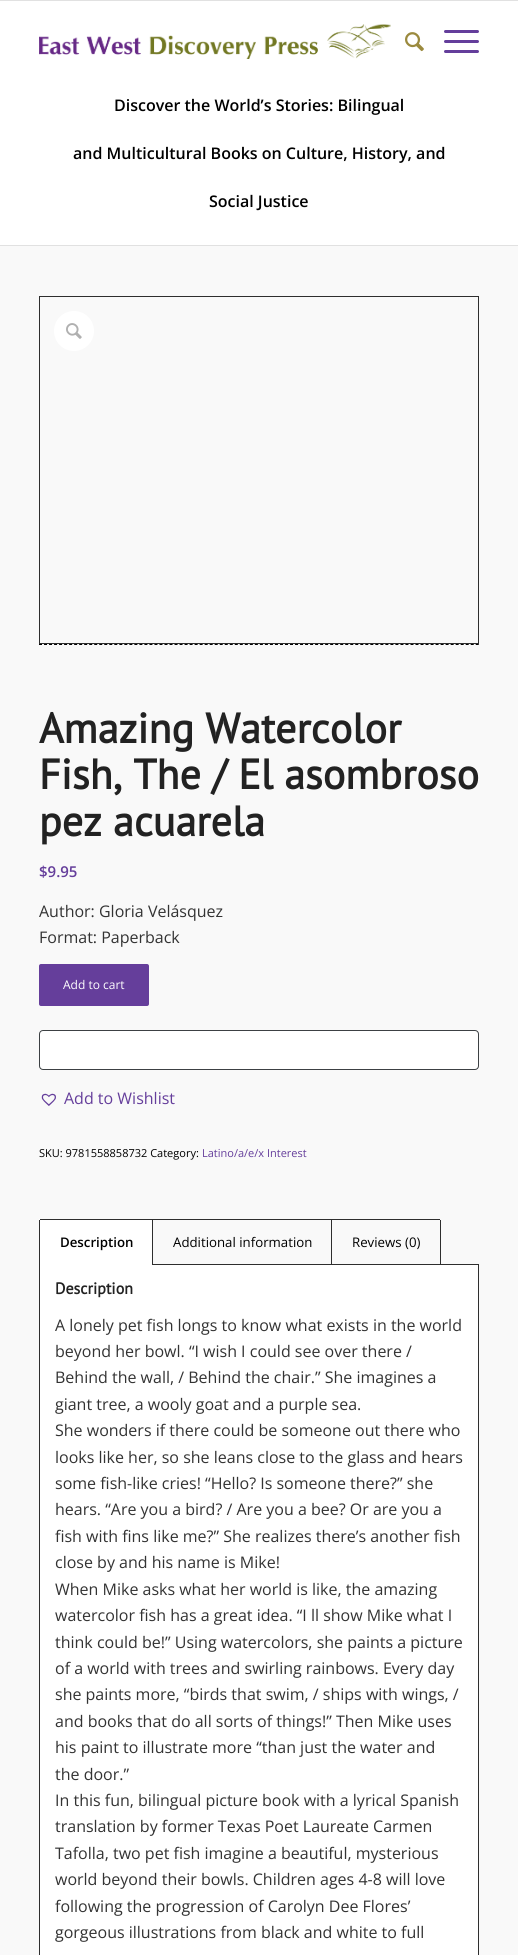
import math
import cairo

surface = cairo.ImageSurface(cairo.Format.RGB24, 518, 1955)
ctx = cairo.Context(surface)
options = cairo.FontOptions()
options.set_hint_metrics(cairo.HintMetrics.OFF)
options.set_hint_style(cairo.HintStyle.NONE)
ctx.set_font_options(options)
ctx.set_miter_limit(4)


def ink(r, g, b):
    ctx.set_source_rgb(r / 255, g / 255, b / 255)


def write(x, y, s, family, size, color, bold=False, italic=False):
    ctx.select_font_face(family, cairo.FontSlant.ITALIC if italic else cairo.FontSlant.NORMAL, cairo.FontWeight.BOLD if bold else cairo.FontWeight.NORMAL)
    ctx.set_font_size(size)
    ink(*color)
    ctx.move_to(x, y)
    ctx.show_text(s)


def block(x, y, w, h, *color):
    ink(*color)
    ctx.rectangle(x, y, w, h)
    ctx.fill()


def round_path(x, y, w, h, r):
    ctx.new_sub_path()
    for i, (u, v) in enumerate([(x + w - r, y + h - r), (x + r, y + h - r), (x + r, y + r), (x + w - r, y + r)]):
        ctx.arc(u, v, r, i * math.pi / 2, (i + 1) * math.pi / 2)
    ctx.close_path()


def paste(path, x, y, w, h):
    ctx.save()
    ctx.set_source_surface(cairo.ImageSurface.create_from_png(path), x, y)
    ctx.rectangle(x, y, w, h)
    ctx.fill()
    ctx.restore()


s1 = dict(family="Open Sans SemiBold", size=16, color=(0, 0, 0))
s2 = dict(family="PT Sans", size=42, color=(34, 34, 34), bold=True)
s3 = dict(family="Open Sans SemiBold", size=15, color=(101, 62, 155))
s4 = dict(family="Open Sans", size=16, color=(51, 51, 51))
s5 = dict(family="Open Sans", size=12, color=(255, 255, 255))
s6 = dict(family="Open Sans", size=16, color=(101, 62, 155))
s7 = dict(family="Open Sans", size=11, color=(0, 0, 0))
s8 = dict(family="Open Sans", size=11, color=(101, 62, 155))
s9 = dict(family="Open Sans SemiBold", size=13.25, color=(0, 0, 0))
s10 = dict(family="Open Sans", size=13.25, color=(0, 0, 0))
s11 = dict(family="PT Sans", size=16, color=(34, 34, 34), bold=True)

ink(249, 249, 249)
ctx.paint()
block(0, 1, 518, 244, 255, 255, 255)
block(0, 0, 518, 1, 225, 225, 225)
block(0, 245, 518, 1, 225, 225, 225)
paste("pic1.png", 39, 24, 352, 35)
paste("pic2.png", 405, 32, 19, 20)
ink(100, 62, 155)
round_path(444, 40, 35, 3, 1.5)
ctx.fill()
round_path(444, 30, 35, 3, 1.5)
ctx.fill()
round_path(444, 50, 35, 3, 1.5)
ctx.fill()
write(114, 111, "Discover the World’s Stories: Bilingual", **s1)
write(73, 159, "and Multicultural Books on Culture, History, and", **s1)
write(209, 207, "Social Justice", **s1)
ctx.rectangle(39.5, 296.5, 439, 347)
ink(46, 46, 46)
ctx.set_line_width(1)
ctx.stroke()
ink(255, 255, 255)
ctx.arc(74, 331, 20, 0, 2 * math.pi)
ctx.fill()
paste("pic3.png", 66, 323, 16, 16)
ctx.new_path()
ctx.move_to(39, 644.5)
ctx.line_to(479, 644.5)
ink(0, 0, 0)
ctx.set_dash([3, 2.02])
ctx.stroke()
write(39, 743, "Amazing Watercolor", **s2)
write(39, 789, "Fish, The / El asombroso", **s2)
write(39, 836, "pez acuarela", **s2)
write(39, 877, "$9.95", **s3)
write(39, 917, "Author: Gloria Velásquez", **s4)
write(39, 943, "Format: Paperback", **s4)
ink(101, 62, 155)
round_path(39, 964, 110, 42, 2)
ctx.fill()
write(63, 989, "Add to cart", **s5)
round_path(39.5, 1030.5, 439, 39, 3.5)
ctx.fill_preserve()
ink(60, 64, 67)
ctx.set_dash([])
ctx.stroke()
paste("pic4.png", 41, 1093, 15, 13)
write(64, 1104, "Add to Wishlist", **s6)
write(39, 1157, "SKU: 9781558858732 Category:", **s7)
write(202, 1157, "Latino/a/e/x Interest", **s8)
ink(255, 255, 255)
ctx.rectangle(39.5, 1264.5, 439, 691)
ctx.fill_preserve()
ink(46, 46, 46)
ctx.stroke()
block(39, 1219, 113, 46, 255, 255, 255)
block(152, 1219, 180, 1, 46, 46, 46)
block(40, 1219, 113, 1, 46, 46, 46)
block(152, 1219, 1, 46, 46, 46, 46)
block(39, 1220, 1, 45, 46, 46, 46)
write(60, 1247, "Description", **s9)
block(331, 1219, 1, 46, 46, 46, 46)
write(173, 1247, "Additional information", **s10)
block(331, 1219, 109, 1, 46, 46, 46)
block(440, 1220, 1, 45, 46, 46, 46)
write(352, 1247, "Reviews (0)", **s10)
write(55, 1294, "Description", **s11)
write(55, 1331, "A lonely pet fish longs to know what exists in the world", **s4)
write(55, 1357, "beyond her bowl. “I wish I could see over there /", **s4)
write(55, 1383, "Behind the wall, / Behind the chair.” She imagines a", **s4)
write(55, 1410, "giant tree, a wooly goat and a purple sea.", **s4)
write(55, 1436, "She wonders if there could be someone out there who", **s4)
write(55, 1463, "looks like her, so she leans close to the glass and hears", **s4)
write(55, 1489, "some fish-like cries! “Hello? Is someone there?” she", **s4)
write(55, 1515, "hears. “Are you a bird? / Are you a bee? Or are you a", **s4)
write(55, 1542, "fish with fins like me?” She realizes there’s another fish", **s4)
write(55, 1568, "close by and his name is Mike!", **s4)
write(55, 1595, "When Mike asks what her world is like, the amazing", **s4)
write(55, 1621, "watercolor fish has a great idea. “I ll show Mike what I", **s4)
write(55, 1648, "think could be!” Using watercolors, she paints a picture", **s4)
write(55, 1674, "of a world with trees and swirling rainbows. Every day", **s4)
write(55, 1700, "she paints more, “birds that swim, / ships with wings, /", **s4)
write(55, 1727, "and books that do all sorts of things!” Then Mike uses", **s4)
write(55, 1753, "his paint to illustrate more “than just the water and", **s4)
write(55, 1780, "the door.”", **s4)
write(55, 1806, "In this fun, bilingual picture book with a lyrical Spanish", **s4)
write(55, 1832, "translation by former Texas Poet Laureate Carmen", **s4)
write(55, 1859, "Tafolla, two pet fish imagine a beautiful, mysterious", **s4)
write(55, 1885, "world beyond their bowls. Children ages 4-8 will love", **s4)
write(55, 1912, "following the progression of Carolyn Dee Flores’", **s4)
write(55, 1938, "gorgeous illustrations from black and white to full", **s4)
surface.write_to_png("screenshot.png")
